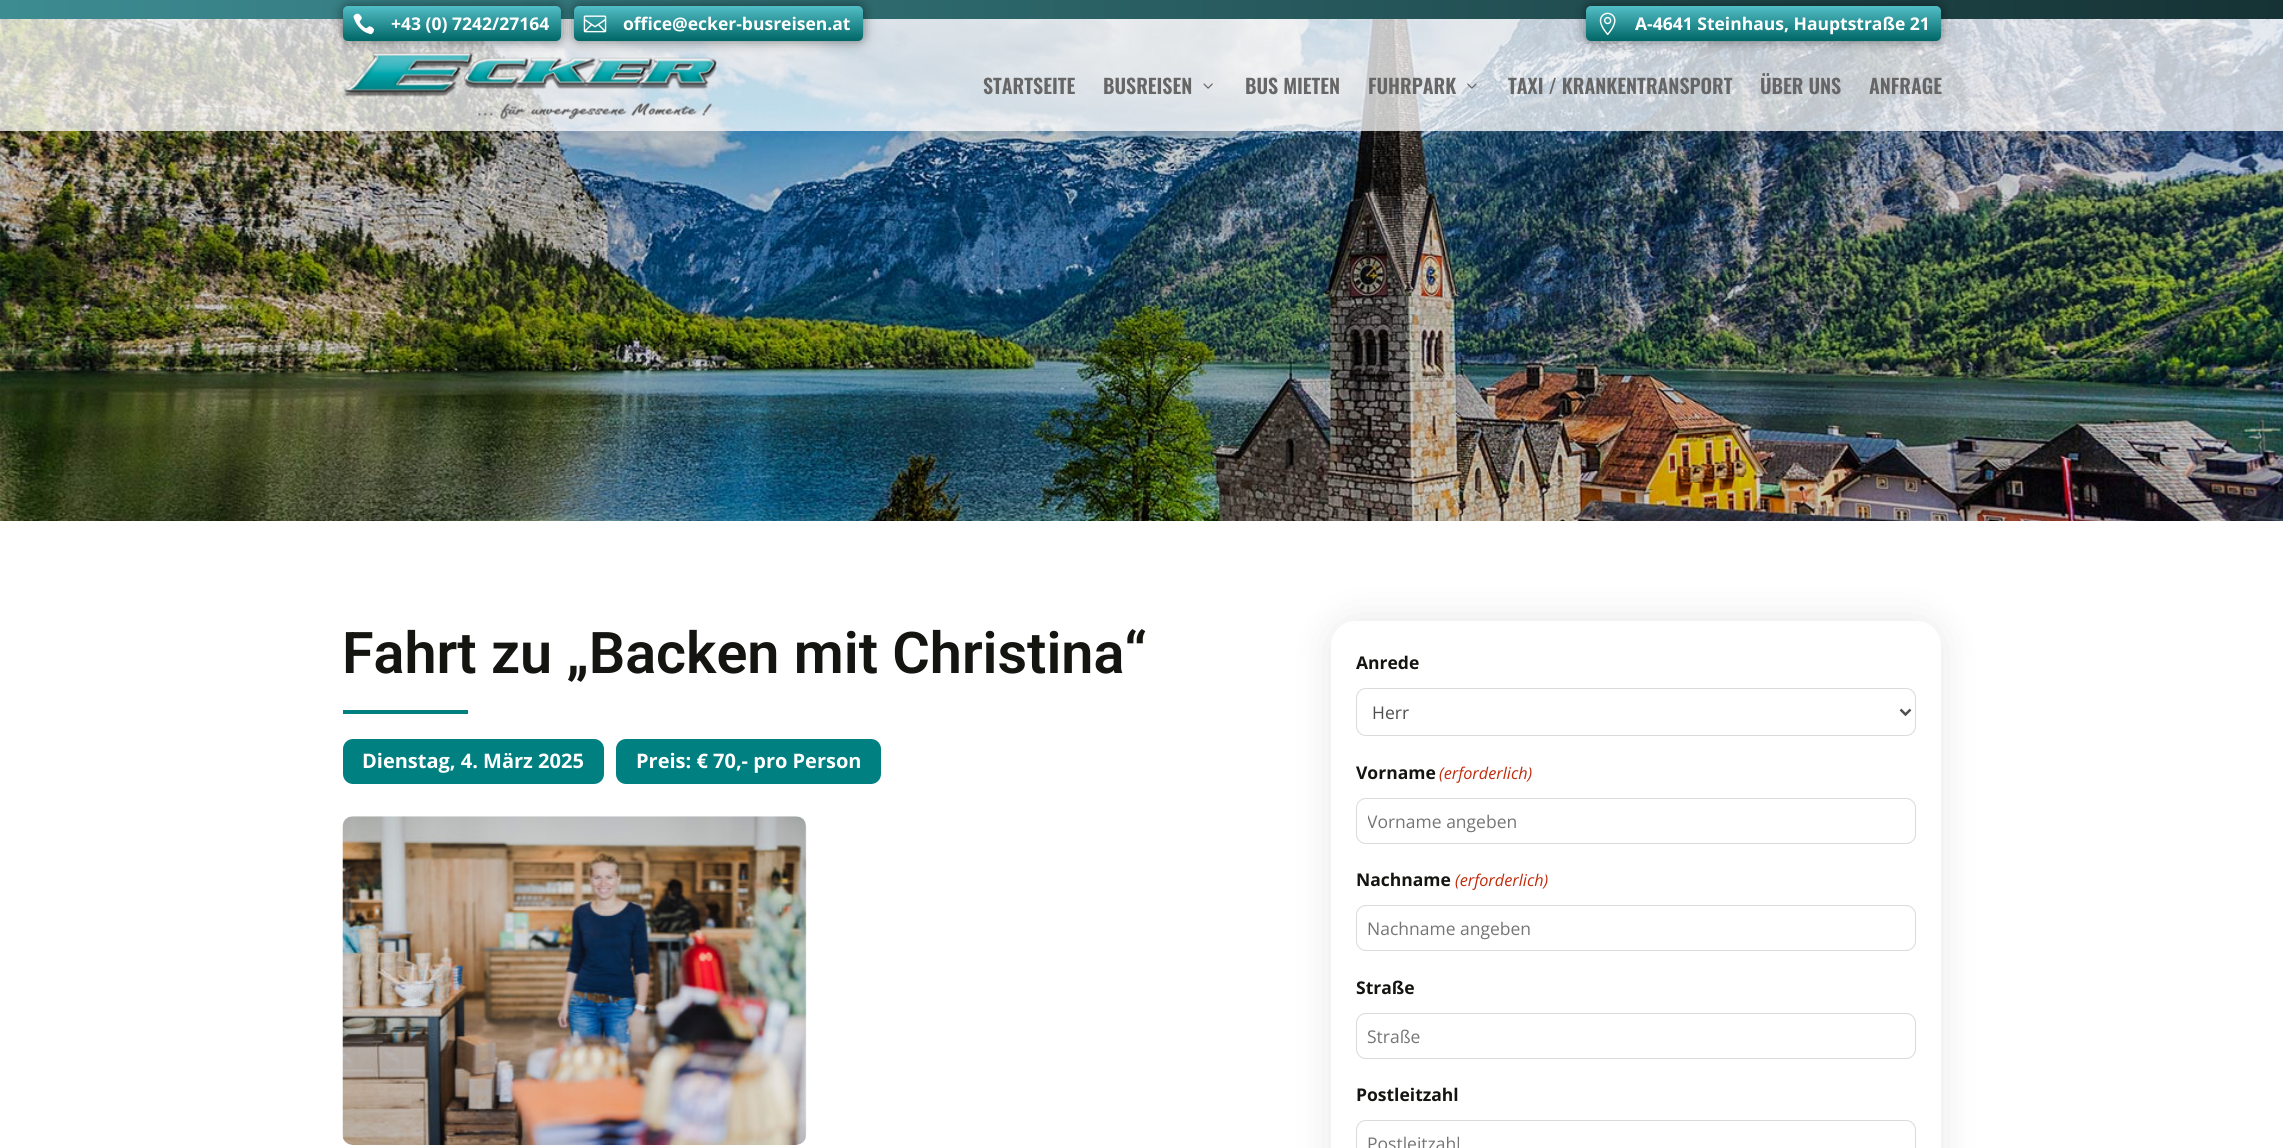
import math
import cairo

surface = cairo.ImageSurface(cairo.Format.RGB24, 2283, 1148)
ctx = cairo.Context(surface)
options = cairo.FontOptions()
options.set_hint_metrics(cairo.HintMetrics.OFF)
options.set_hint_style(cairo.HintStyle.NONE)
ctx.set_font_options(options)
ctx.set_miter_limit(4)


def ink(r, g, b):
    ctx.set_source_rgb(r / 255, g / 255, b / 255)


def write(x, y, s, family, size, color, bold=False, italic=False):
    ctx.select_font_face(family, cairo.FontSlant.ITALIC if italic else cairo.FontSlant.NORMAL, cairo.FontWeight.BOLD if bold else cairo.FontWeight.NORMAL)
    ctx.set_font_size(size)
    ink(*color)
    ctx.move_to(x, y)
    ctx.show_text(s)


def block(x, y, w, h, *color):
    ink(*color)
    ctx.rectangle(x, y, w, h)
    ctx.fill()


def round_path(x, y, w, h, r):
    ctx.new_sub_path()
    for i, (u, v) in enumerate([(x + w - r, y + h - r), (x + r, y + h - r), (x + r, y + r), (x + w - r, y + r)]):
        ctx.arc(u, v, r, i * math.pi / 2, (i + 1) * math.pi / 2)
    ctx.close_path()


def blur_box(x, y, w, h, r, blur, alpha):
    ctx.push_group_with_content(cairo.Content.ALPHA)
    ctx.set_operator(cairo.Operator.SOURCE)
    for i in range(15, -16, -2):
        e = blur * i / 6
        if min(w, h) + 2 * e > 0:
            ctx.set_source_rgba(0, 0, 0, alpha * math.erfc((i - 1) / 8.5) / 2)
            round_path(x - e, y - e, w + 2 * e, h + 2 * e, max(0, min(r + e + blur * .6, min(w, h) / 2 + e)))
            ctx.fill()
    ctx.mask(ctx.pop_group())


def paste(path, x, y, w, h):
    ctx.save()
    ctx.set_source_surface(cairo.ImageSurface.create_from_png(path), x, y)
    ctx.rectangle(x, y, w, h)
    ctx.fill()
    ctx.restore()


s1 = dict(family="Open Sans", size=17.5, color=(255, 255, 255), bold=True)
s2 = dict(family="Oswald SemiBold", size=20, color=(102, 102, 102))
s3 = dict(family="Roboto SemiBold", size=57.5, color=(20, 21, 17))
s4 = dict(family="Open Sans", size=20, color=(255, 255, 255), bold=True)
s5 = dict(family="Open Sans", size=17.5, color=(20, 21, 17), bold=True)
s6 = dict(family="Open Sans", size=17.5, color=(78, 78, 78))
s7 = dict(family="Open Sans", size=16.25, color=(192, 43, 10), italic=True)
s8 = dict(family="Open Sans", size=17.5, color=(117, 117, 117))

ink(255, 255, 255)
ctx.paint()
paste("pic7.png", 0, 19, 2283, 502)
ctx.set_source_rgba(1, 1, 1, 0.75)
ctx.rectangle(0, 19, 2283, 112)
ctx.fill()
gradient = cairo.LinearGradient(-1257, 9, 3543, 9)
gradient.add_color_stop_rgba(0, 0.322, 0.745, 0.776, 1)
gradient.add_color_stop_rgba(1, 0, 0, 0, 1)
ctx.set_source(gradient)
ctx.rectangle(0, 0, 2283, 19)
ctx.fill()
paste("pic4.png", 344, 52, 373, 68)
ink(0, 0, 0)
blur_box(343, 6, 218, 35, 5, 6, 0.5)
gradient = cairo.LinearGradient(452, 6.2, 452, 41)
gradient.add_color_stop_rgba(0, 0.322, 0.745, 0.776, 1)
gradient.add_color_stop_rgba(1, 0, 0.4, 0.4, 1)
ctx.set_source(gradient)
round_path(343, 6, 218, 35, 5)
ctx.fill()
paste("pic1.png", 353, 13, 22, 22)
write(391, 30, "+43 (0) 7242/27164", **s1)
ink(0, 0, 0)
blur_box(574, 6, 289, 35, 5, 6, 0.5)
gradient = cairo.LinearGradient(718, 6.2, 718, 41)
gradient.add_color_stop_rgba(0, 0.322, 0.745, 0.776, 1)
gradient.add_color_stop_rgba(1, 0, 0.4, 0.4, 1)
ctx.set_source(gradient)
round_path(574, 6, 289, 35, 5)
ctx.fill()
paste("pic2.png", 583, 15, 24, 18)
write(623, 30, "office@ecker-busreisen.at", **s1)
ink(0, 0, 0)
blur_box(1586, 6, 355, 35, 5, 6, 0.5)
gradient = cairo.LinearGradient(1764, 6.2, 1764, 41)
gradient.add_color_stop_rgba(0, 0.322, 0.745, 0.776, 1)
gradient.add_color_stop_rgba(1, 0, 0.4, 0.4, 1)
ctx.set_source(gradient)
round_path(1586, 6, 355, 35, 5)
ctx.fill()
paste("pic3.png", 1599, 12, 17, 24)
write(1635, 30, "A-4641 Steinhaus, Hauptstraße 21", **s1)
write(983, 94, "STARTSEITE", **s2)
write(1103, 94, "BUSREISEN", **s2)
paste("pic5.png", 1203, 83, 10, 6)
write(1245, 94, "BUS MIETEN", **s2)
write(1368, 94, "FUHRPARK", **s2)
paste("pic6.png", 1467, 83, 10, 6)
write(1508, 94, "TAXI / KRANKENTRANSPORT", **s2)
write(1760, 94, "ÜBER UNS", **s2)
write(1869, 94, "ANFRAGE", **s2)
write(342, 673, "Fahrt zu „Backen mit Christina“", **s3)
block(343, 710, 125, 4, 0, 128, 128)
round_path(343, 739, 261, 45, 10)
ctx.fill()
write(362, 768, "Dienstag, 4. März 2025", **s4)
ink(0, 128, 128)
round_path(616, 739, 265, 45, 10)
ctx.fill()
write(636, 768, "Preis: € 70,- pro Person", **s4)
paste("pic8.png", 342, 816, 465, 329)
ink(0, 0, 0)
blur_box(1331, 621, 610, 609, 25, 19, 0.1)
ink(255, 255, 255)
round_path(1331, 621, 610, 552, 25)
ctx.fill()
write(1356, 669, "Anrede", **s5)
round_path(1356.5, 688.5, 559, 47, 9.5)
ink(218, 218, 218)
ctx.set_line_width(1)
ctx.stroke()
ctx.new_path()
ctx.move_to(1900.5, 709.5)
ctx.line_to(1905.5, 714.5)
ctx.line_to(1910.5, 709.5)
ink(78, 78, 78)
ctx.set_line_width(2.5)
ctx.stroke()
write(1372, 719, "Herr", **s6)
write(1356, 779, "Vorname", **s5)
write(1439, 779, "(erforderlich)", **s7)
round_path(1356.5, 798.5, 559, 45, 9.5)
ink(218, 218, 218)
ctx.set_line_width(1)
ctx.stroke()
ctx.save()
ctx.rectangle(1368, 809, 537, 24)
ctx.clip()
write(1367, 828, "Vorname angeben", **s8)
ctx.restore()
write(1356, 886, "Nachname", **s5)
write(1455, 886, "(erforderlich)", **s7)
round_path(1356.5, 905.5, 559, 45, 9.5)
ink(218, 218, 218)
ctx.stroke()
write(1367, 935, "Nachname angeben", **s8)
write(1356, 994, "Straße", **s5)
round_path(1356.5, 1013.5, 559, 45, 9.5)
ink(218, 218, 218)
ctx.stroke()
write(1367, 1043, "Straße", **s8)
write(1356, 1101, "Postleitzahl", **s5)
round_path(1356.5, 1120.5, 559, 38, 9.5)
ink(218, 218, 218)
ctx.stroke()
write(1367, 1150, "Postleitzahl", **s8)
surface.write_to_png("screenshot.png")
